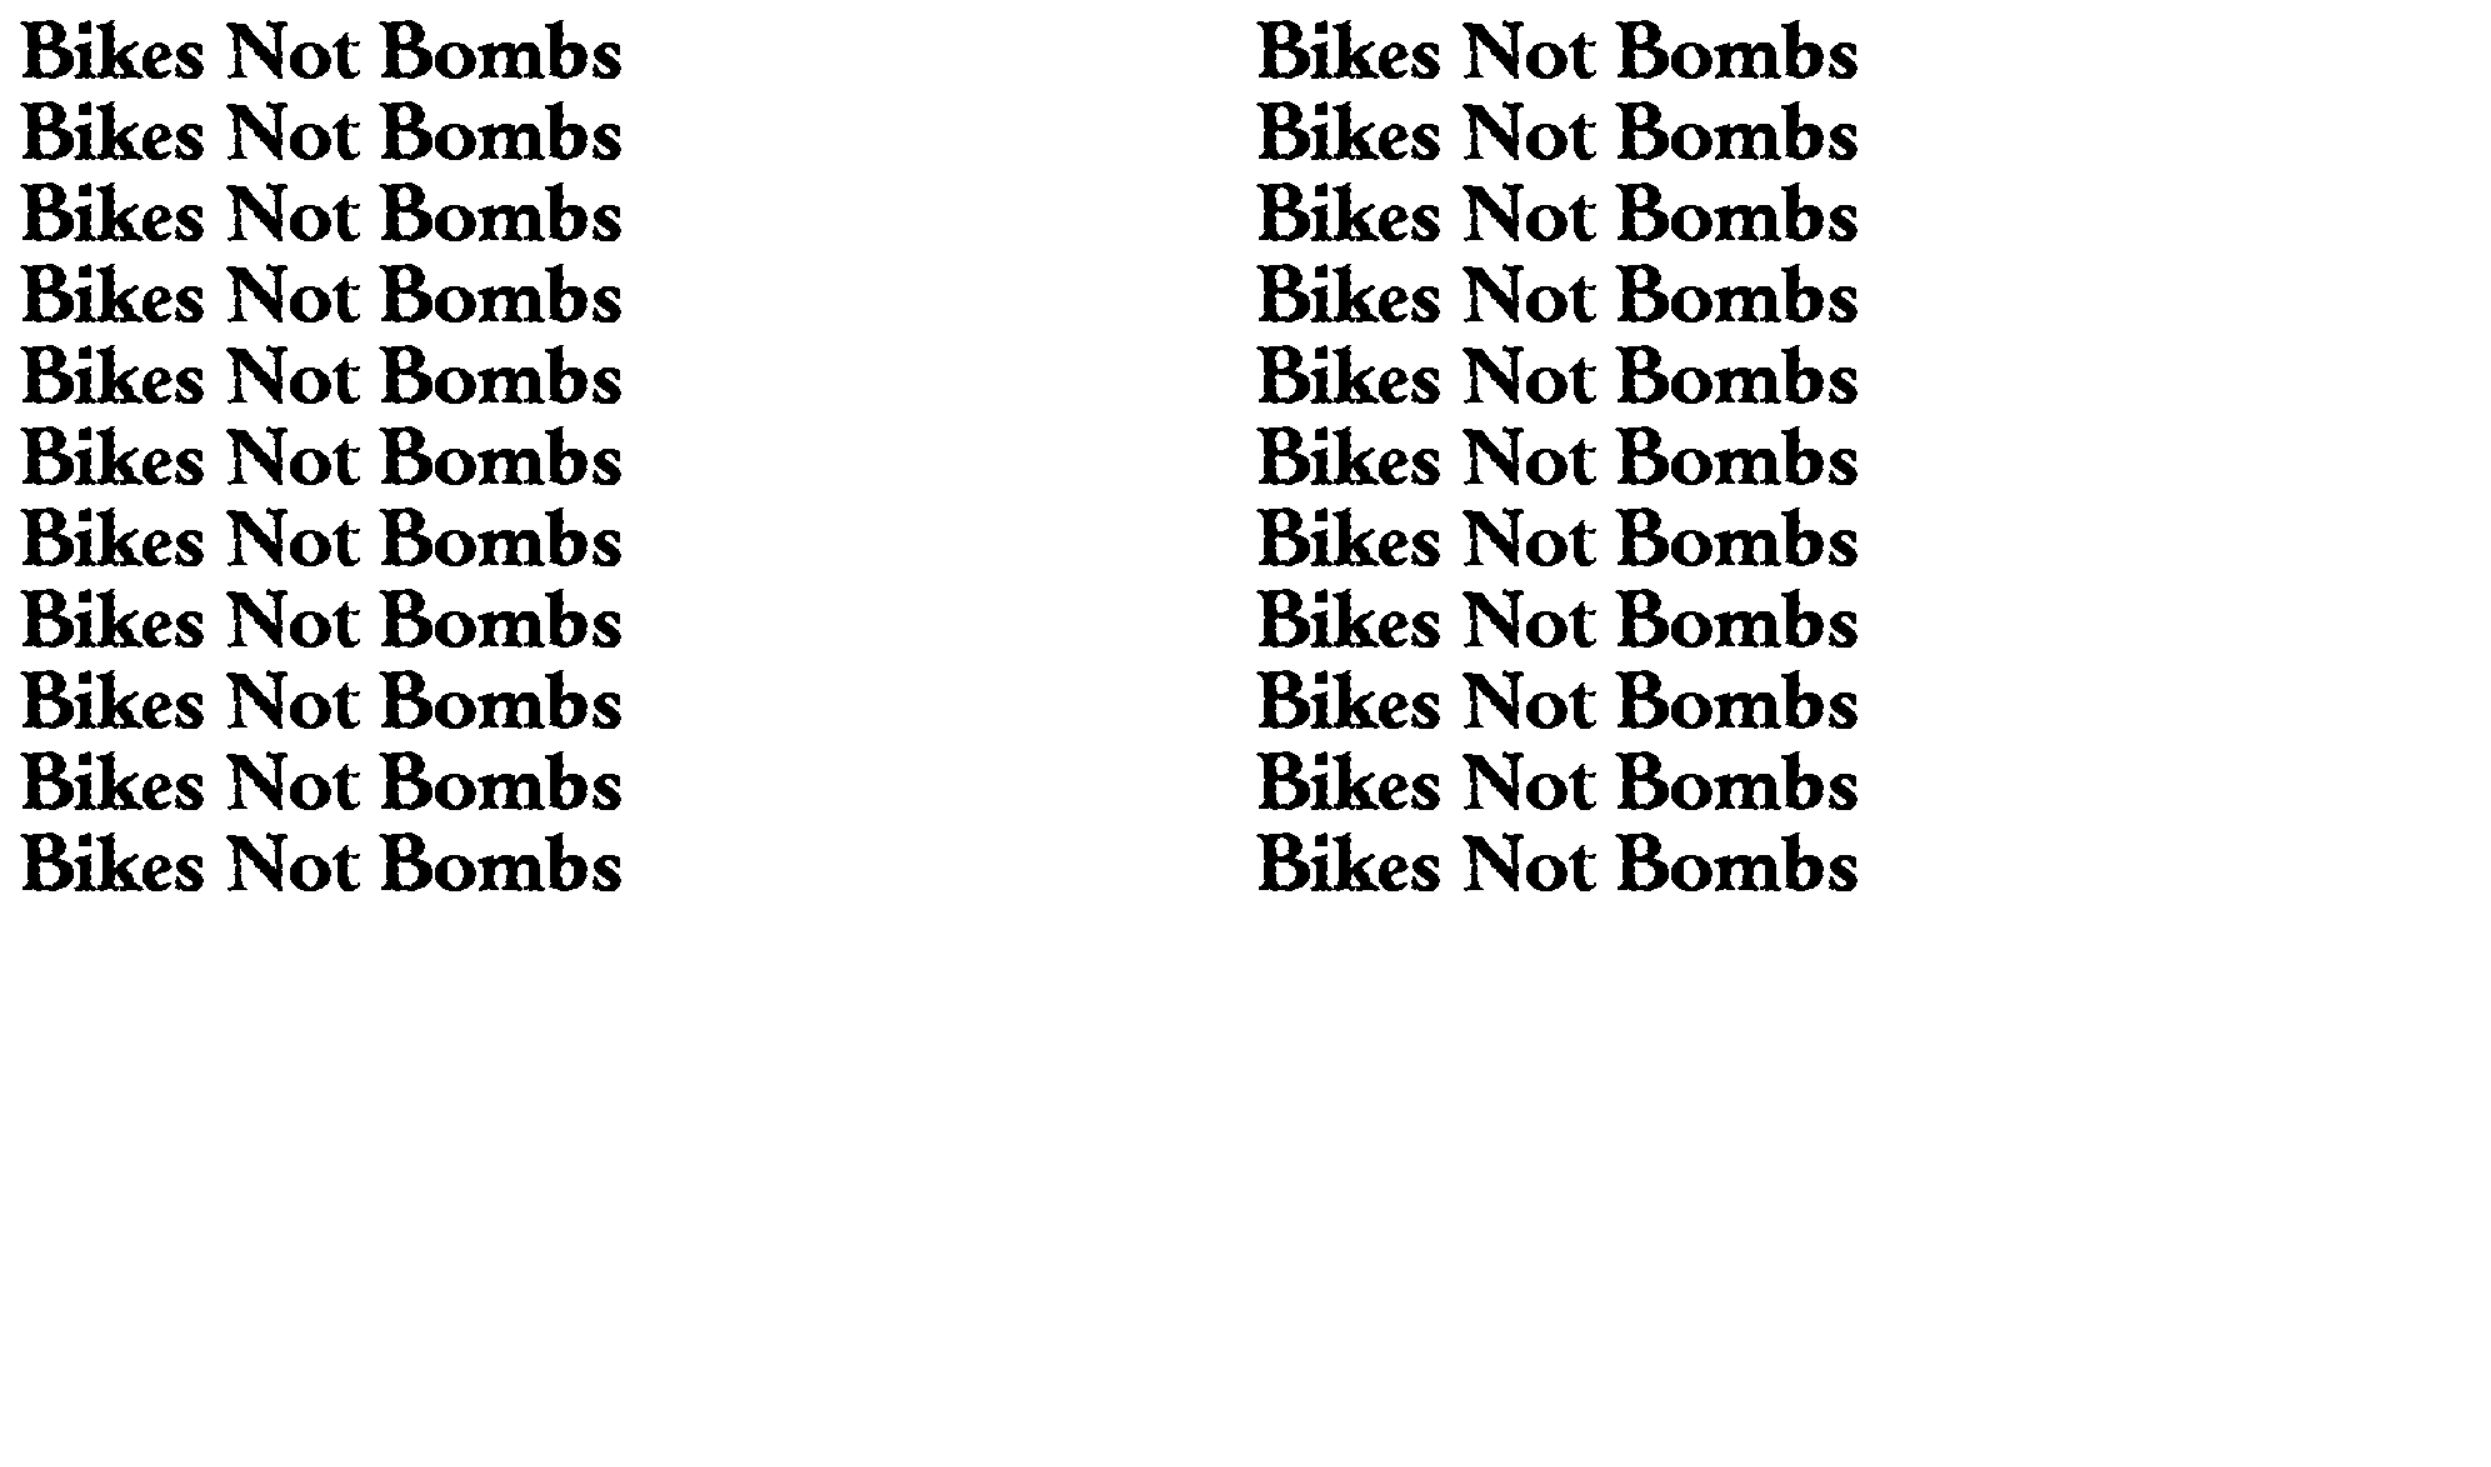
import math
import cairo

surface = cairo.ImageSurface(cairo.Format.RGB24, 2491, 1467)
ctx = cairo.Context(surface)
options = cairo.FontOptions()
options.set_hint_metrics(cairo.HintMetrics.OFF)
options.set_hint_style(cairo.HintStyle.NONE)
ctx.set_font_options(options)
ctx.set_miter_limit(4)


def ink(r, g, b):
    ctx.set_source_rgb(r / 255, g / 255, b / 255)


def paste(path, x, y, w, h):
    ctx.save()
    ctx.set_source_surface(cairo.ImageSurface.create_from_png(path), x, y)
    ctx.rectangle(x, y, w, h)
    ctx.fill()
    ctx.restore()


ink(255, 255, 255)
ctx.paint()
paste("pic1.png", 19, 19, 603, 60)
paste("pic2.png", 1256, 19, 602, 60)
paste("pic3.png", 19, 101, 603, 60)
paste("pic4.png", 1256, 101, 602, 60)
paste("pic5.png", 19, 182, 603, 60)
paste("pic6.png", 1256, 182, 602, 60)
paste("pic7.png", 19, 263, 603, 60)
paste("pic8.png", 1256, 263, 602, 60)
paste("pic1.png", 19, 344, 603, 60)
paste("pic2.png", 1256, 344, 602, 60)
paste("pic3.png", 19, 426, 603, 60)
paste("pic4.png", 1256, 426, 602, 60)
paste("pic5.png", 19, 507, 603, 60)
paste("pic6.png", 1256, 507, 602, 60)
paste("pic9.png", 19, 588, 603, 60)
paste("pic10.png", 1256, 588, 602, 60)
paste("pic1.png", 19, 669, 603, 60)
paste("pic2.png", 1256, 669, 602, 60)
paste("pic3.png", 19, 751, 603, 60)
paste("pic4.png", 1256, 751, 602, 60)
paste("pic5.png", 19, 832, 603, 60)
paste("pic6.png", 1256, 832, 602, 60)
surface.write_to_png("screenshot.png")
